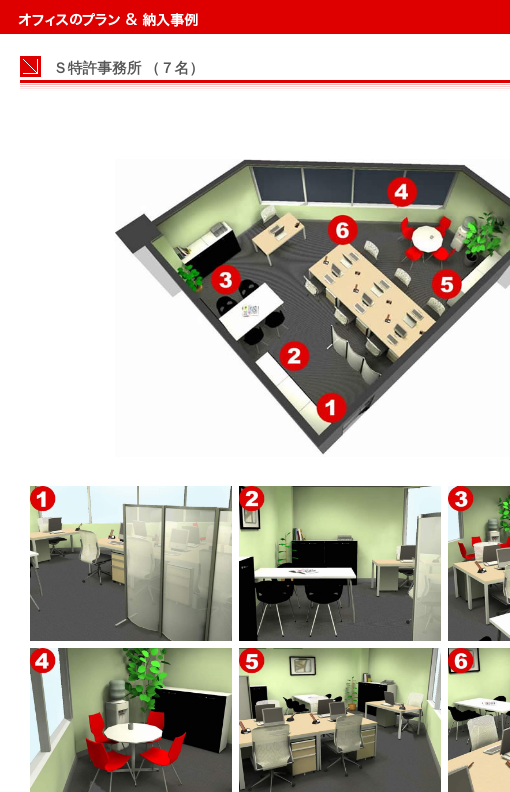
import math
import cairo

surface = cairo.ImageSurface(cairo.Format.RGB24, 510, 792)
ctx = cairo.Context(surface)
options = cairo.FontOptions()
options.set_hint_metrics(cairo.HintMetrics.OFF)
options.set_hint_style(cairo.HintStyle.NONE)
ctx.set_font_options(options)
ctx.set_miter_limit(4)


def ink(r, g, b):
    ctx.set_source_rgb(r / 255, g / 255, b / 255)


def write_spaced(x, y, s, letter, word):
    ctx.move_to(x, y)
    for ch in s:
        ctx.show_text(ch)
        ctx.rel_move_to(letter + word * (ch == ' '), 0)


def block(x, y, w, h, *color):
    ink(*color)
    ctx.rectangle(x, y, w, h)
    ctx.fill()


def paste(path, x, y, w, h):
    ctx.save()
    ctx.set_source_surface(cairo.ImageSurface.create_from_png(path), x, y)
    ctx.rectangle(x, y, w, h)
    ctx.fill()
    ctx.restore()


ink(255, 255, 255)
ctx.paint()
block(0, 0, 510, 34, 222, 0, 0)
paste("pic1.png", 18, 13, 180, 14)
paste("pic2.png", 20, 80, 490, 11)
paste("pic3.png", 20, 56, 21, 21)
ctx.select_font_face("WenQuanYi Zen Hei", cairo.FontSlant.NORMAL, cairo.FontWeight.BOLD)
ctx.set_font_size(14.75)
ink(85, 85, 85)
write_spaced(53, 73, "Ｓ特許事務所 （７名）", 0, -1)
paste("pic4.png", 115, 159, 395, 298)
paste("pic5.png", 30, 486, 202, 155)
paste("pic6.png", 239, 486, 202, 155)
paste("pic7.png", 448, 486, 62, 155)
paste("pic8.png", 30, 648, 202, 144)
paste("pic9.png", 239, 648, 202, 144)
paste("pic10.png", 448, 648, 62, 144)
surface.write_to_png("screenshot.png")
